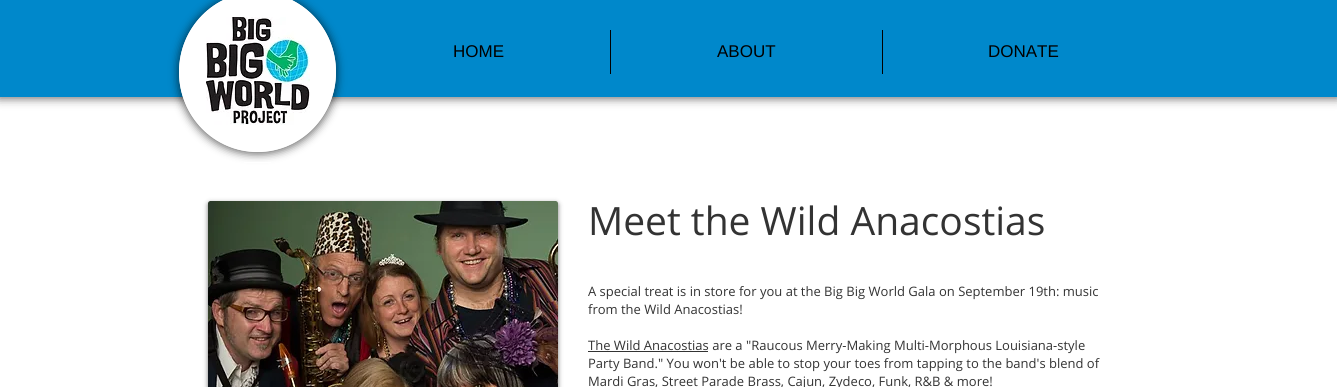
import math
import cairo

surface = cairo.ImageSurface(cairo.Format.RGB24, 1337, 387)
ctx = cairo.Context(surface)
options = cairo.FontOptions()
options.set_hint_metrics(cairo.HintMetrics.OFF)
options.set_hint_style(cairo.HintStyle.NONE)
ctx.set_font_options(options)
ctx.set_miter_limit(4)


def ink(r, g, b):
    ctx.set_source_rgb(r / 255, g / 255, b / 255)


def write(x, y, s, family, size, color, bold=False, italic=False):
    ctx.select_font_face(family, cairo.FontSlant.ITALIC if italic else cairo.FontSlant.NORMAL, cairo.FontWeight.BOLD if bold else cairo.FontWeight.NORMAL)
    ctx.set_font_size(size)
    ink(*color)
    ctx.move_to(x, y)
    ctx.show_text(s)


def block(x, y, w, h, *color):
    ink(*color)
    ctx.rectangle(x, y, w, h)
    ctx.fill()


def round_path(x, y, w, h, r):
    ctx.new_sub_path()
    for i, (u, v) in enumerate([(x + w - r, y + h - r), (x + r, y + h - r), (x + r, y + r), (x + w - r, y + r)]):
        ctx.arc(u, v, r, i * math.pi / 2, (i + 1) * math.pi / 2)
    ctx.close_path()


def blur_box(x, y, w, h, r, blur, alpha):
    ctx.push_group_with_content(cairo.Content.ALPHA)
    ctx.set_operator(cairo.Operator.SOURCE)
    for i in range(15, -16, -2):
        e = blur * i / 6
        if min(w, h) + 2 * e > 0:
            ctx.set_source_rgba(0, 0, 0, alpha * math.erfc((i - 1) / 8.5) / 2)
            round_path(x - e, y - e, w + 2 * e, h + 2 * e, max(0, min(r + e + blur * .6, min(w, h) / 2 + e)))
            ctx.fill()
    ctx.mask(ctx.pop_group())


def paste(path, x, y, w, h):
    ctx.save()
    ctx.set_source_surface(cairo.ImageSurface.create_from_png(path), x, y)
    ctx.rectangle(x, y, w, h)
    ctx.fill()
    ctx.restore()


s1 = dict(family="Liberation Sans", size=17, color=(0, 0, 0))
s2 = dict(family="Open Sans", size=39, color=(51, 51, 51))
s3 = dict(family="Open Sans", size=13, color=(51, 51, 51))

ink(255, 255, 255)
ctx.paint()
ink(26, 25, 25)
blur_box(-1, -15, 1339, 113, 0, 5, 0.7)
block(0, 0, 1337, 97, 0, 136, 203)
ink(0, 0, 0)
blur_box(178, -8, 159, 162, 79.5, 4.5, 0.6)
ink(255, 255, 255)
ctx.new_path()
ctx.move_to(257.5, -8)
ctx.curve_to(301, -8, 336, 28, 336, 72)
ctx.curve_to(336, 116, 301, 152, 257.5, 152)
ctx.curve_to(214, 152, 179, 116, 179, 72)
ctx.curve_to(179, 28, 214, -8, 257.5, -8)
ctx.close_path()
ctx.fill()
ctx.new_path()
ctx.move_to(257.5, -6.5)
ctx.curve_to(300, -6.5, 334.5, 28.5, 334.5, 72)
ctx.curve_to(334.5, 115.5, 300, 150.5, 257.5, 150.5)
ctx.curve_to(215, 150.5, 180.5, 115.5, 180.5, 72)
ctx.curve_to(180.5, 28.5, 215, -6.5, 257.5, -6.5)
ctx.close_path()
ctx.set_line_width(3)
ctx.stroke()
paste("pic1.png", 206, 17, 104, 108)
write(453, 57, "HOME", **s1)
block(610, 30, 1, 44, 0, 0, 0)
write(717, 57, "ABOUT", **s1)
block(882, 30, 1, 44, 0, 0, 0)
write(988, 57, "DONATE", **s1)
block(244, 162, 27, 1, 255, 255, 255)
ink(0, 0, 0)
blur_box(208, 203, 350, 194, 2, 2.5, 0.53)
paste("pic2.png", 208, 201, 350, 186)
write(588, 235, "Meet the Wild Anacostias", **s2)
write(588, 296, "A special treat is in store for you at the Big Big World Gala on September 19th: music", **s3)
write(588, 314, "from the Wild Anacostias!", **s3)
block(588, 351, 120, 1, 51, 51, 51)
write(588, 350, "The Wild Anacostias are a \"Raucous Merry-Making Multi-Morphous Louisiana-style", **s3)
write(588, 368, "Party Band.\" You won't be able to stop your toes from tapping to the band's blend of", **s3)
write(588, 386, "Mardi Gras, Street Parade Brass, Cajun, Zydeco, Funk, R&B & more!", **s3)
surface.write_to_png("screenshot.png")
